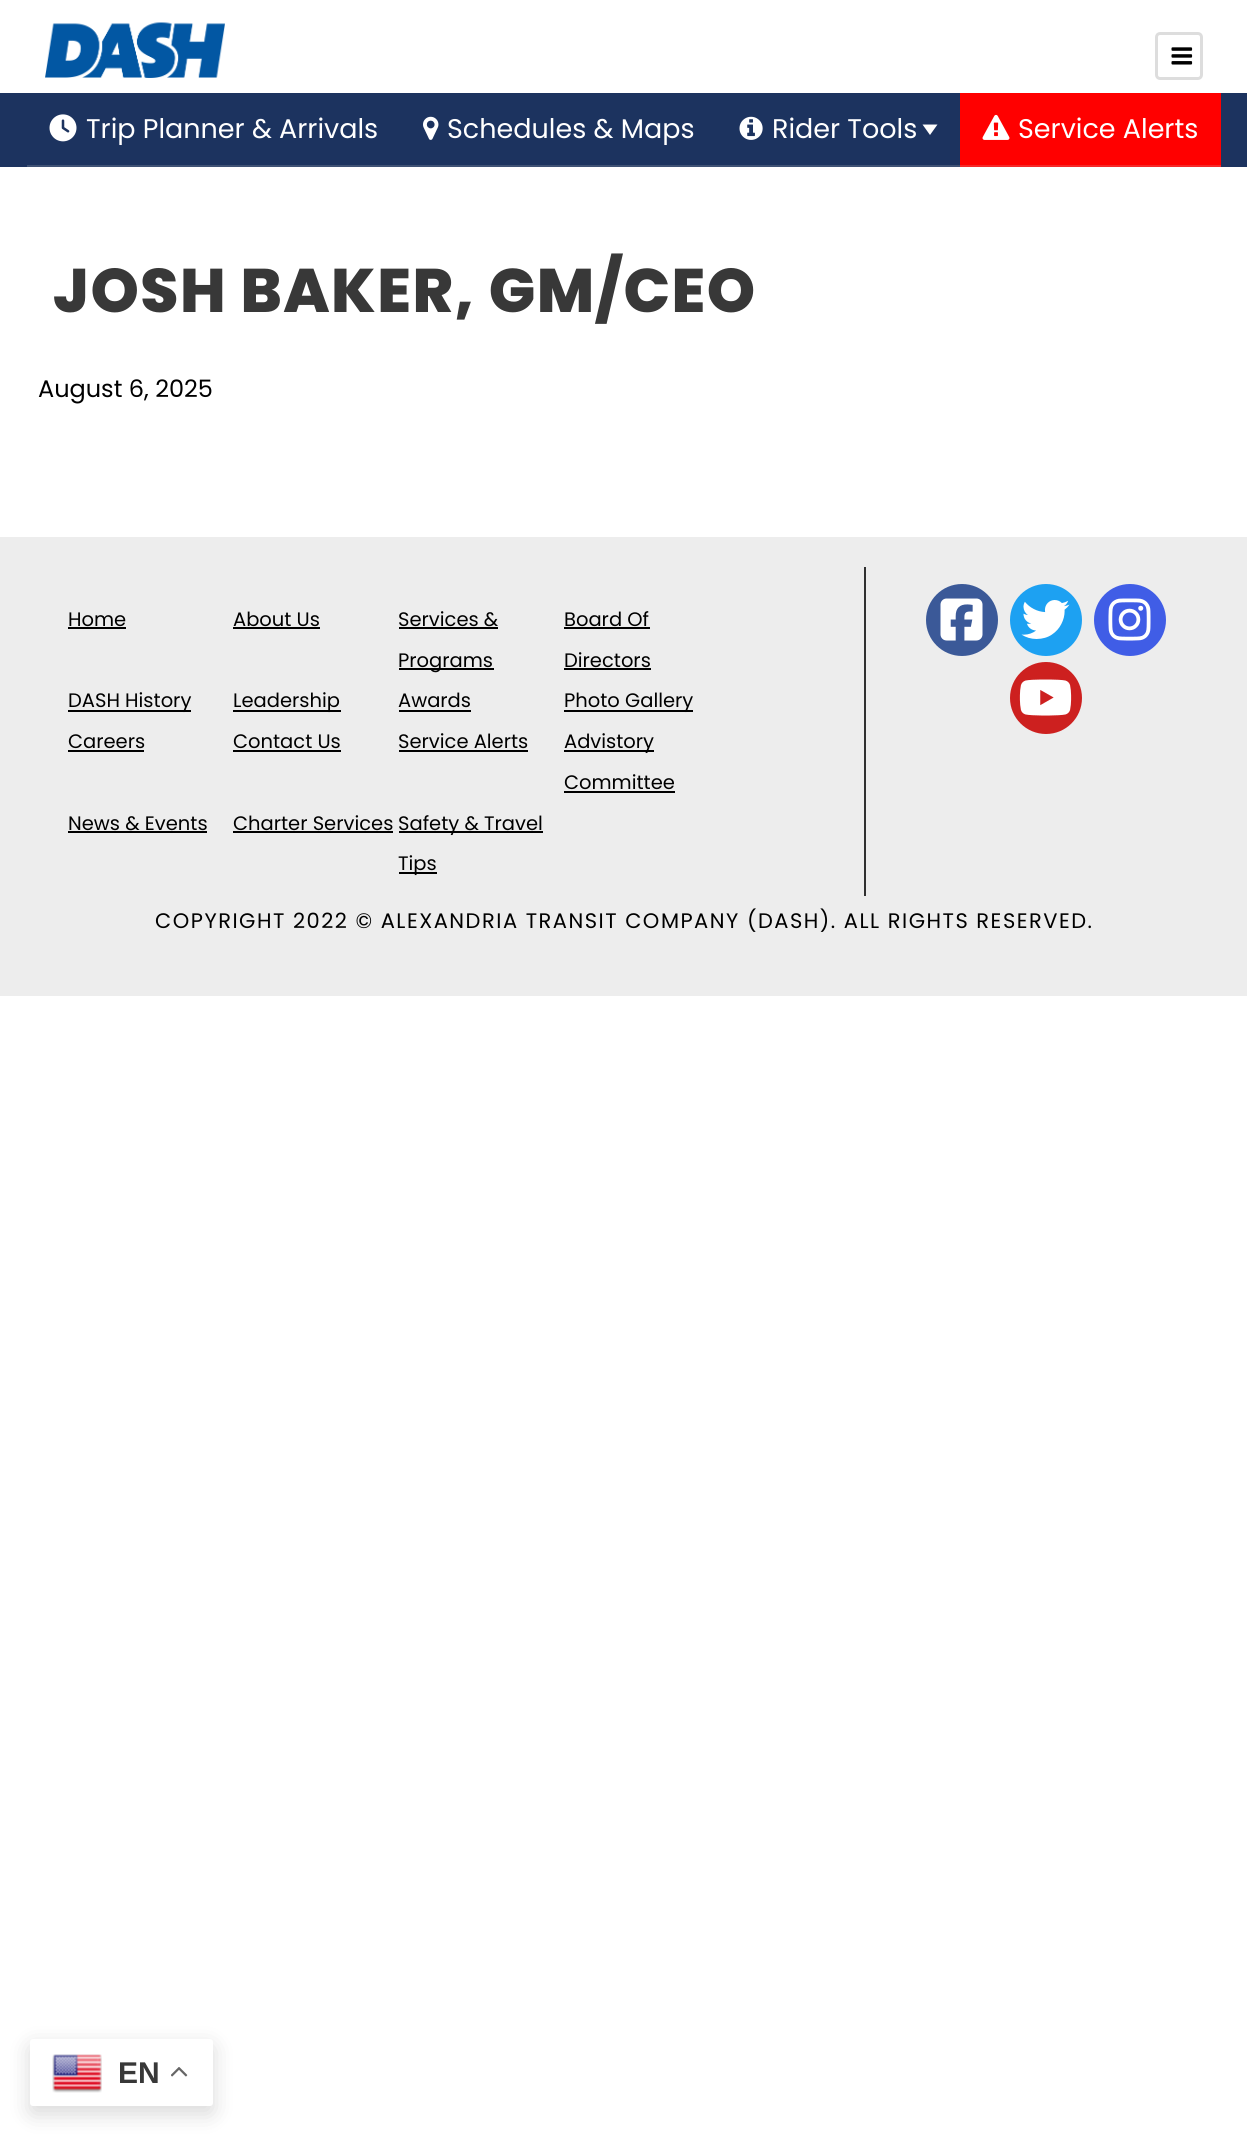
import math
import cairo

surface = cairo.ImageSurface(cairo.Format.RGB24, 1247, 2147)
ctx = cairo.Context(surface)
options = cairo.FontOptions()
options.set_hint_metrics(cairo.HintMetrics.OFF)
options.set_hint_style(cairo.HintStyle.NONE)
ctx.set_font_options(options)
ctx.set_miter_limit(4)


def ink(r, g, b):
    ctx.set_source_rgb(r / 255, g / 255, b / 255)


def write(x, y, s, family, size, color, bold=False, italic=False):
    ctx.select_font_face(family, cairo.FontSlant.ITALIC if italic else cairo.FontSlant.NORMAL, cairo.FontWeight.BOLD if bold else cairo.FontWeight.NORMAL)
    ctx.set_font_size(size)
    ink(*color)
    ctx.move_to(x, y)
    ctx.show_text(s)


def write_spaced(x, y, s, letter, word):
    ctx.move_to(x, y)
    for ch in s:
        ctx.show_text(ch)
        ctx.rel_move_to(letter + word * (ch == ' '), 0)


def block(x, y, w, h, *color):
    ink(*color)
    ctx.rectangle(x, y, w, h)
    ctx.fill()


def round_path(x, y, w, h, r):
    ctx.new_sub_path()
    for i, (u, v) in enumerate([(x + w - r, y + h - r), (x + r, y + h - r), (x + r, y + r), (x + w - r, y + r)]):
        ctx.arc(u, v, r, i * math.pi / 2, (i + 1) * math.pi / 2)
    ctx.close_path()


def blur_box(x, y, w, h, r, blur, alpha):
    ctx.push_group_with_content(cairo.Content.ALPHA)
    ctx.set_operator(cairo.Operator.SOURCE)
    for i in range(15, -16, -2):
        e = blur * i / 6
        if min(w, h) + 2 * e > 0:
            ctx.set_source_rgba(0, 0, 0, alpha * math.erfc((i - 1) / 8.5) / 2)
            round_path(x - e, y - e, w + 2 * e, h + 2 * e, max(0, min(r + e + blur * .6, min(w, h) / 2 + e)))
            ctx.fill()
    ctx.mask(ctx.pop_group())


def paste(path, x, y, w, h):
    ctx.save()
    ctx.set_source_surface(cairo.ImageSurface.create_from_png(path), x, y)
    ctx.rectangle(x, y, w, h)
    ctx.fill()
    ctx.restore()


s1 = dict(family="Poppins", size=27, color=(255, 255, 255))
s2 = dict(family="Poppins", size=24, color=(0, 0, 0))
s3 = dict(family="Poppins", size=19.5, color=(0, 0, 0))
s4 = dict(family="Liberation Sans", size=30, color=(56, 56, 56), bold=True)

ink(255, 255, 255)
ctx.paint()
paste("pic1.png", 45, 22, 180, 56)
round_path(1156.5, 33.5, 45, 45, 3.5)
ink(221, 221, 221)
ctx.set_line_width(3)
ctx.stroke()
paste("pic2.png", 1171, 47, 22, 18)
block(0, 93, 1247, 74, 28, 51, 95)
block(27, 165, 933, 2, 63, 82, 117)
paste("pic3.png", 49, 114, 28, 28)
write(86, 138, "Trip Planner & Arrivals", **s1)
paste("pic4.png", 423, 116, 16, 24)
write(447, 138, "Schedules & Maps", **s1)
paste("pic5.png", 739, 116, 24, 24)
write(772, 138, "Rider Tools", **s1)
ctx.new_path()
ctx.move_to(922.5, 124.5)
ctx.line_to(937.5, 124.5)
ctx.line_to(930, 135)
ctx.close_path()
ctx.fill()
block(960, 93, 261, 72, 255, 0, 0)
block(960, 165, 261, 2, 245, 41, 41)
paste("pic6.png", 982, 114, 28, 26)
write(1018, 138, "Service Alerts", **s1)
ctx.select_font_face("Poppins ExtraBold")
ctx.set_font_size(61.5)
ink(56, 56, 56)
write_spaced(53, 312, "JOSH BAKER, GM/CEO", 1.5, 0)
write(38, 397, "August 6, 2025", **s2)
block(0, 537, 1247, 459, 237, 237, 237)
write(68, 626, "Home", **s3)
block(68, 627, 58, 2, 0, 0, 0)
write(233, 626, "About Us", **s3)
block(233, 627, 87, 2, 0, 0, 0)
write(398, 626, "Services &", **s3)
block(399, 627, 99, 2, 0, 0, 0)
block(399, 668, 95, 2, 0, 0, 0)
write(398, 667, "Programs", **s3)
write(564, 626, "Board Of", **s3)
block(564, 627, 86, 2, 0, 0, 0)
write(564, 667, "Directors", **s3)
block(564, 668, 87, 2, 0, 0, 0)
block(68, 710, 123, 2, 0, 0, 0)
write(68, 707, "DASH History", **s3)
block(233, 710, 108, 2, 0, 0, 0)
write(233, 707, "Leadership", **s3)
write(398, 707, "Awards", **s3)
block(399, 710, 72, 2, 0, 0, 0)
block(564, 710, 129, 2, 0, 0, 0)
write(564, 707, "Photo Gallery", **s3)
write(68, 748, "Careers", **s3)
block(68, 750, 76, 2, 0, 0, 0)
write(233, 748, "Contact Us", **s3)
block(233, 750, 108, 2, 0, 0, 0)
write(398, 748, "Service Alerts", **s3)
block(399, 750, 129, 2, 0, 0, 0)
block(564, 750, 90, 2, 0, 0, 0)
write(564, 748, "Advistory", **s3)
write(564, 789, "Committee", **s3)
block(564, 791, 111, 2, 0, 0, 0)
write(68, 830, "News & Events", **s3)
block(68, 831, 139, 2, 0, 0, 0)
write(233, 830, "Charter Services", **s3)
block(233, 831, 160, 2, 0, 0, 0)
block(399, 831, 144, 2, 0, 0, 0)
write(398, 830, "Safety & Travel", **s3)
block(399, 872, 38, 2, 0, 0, 0)
write(398, 870, "Tips", **s3)
block(864, 567, 2, 329, 48, 48, 48)
ink(59, 89, 152)
ctx.new_path()
ctx.arc(962, 620, 36, 0, 2 * math.pi)
ctx.fill()
paste("pic7.png", 940, 598, 43, 43)
ink(29, 161, 242)
ctx.arc(1046, 620, 36, 0, 2 * math.pi)
ctx.fill()
paste("pic8.png", 1021, 600, 49, 39)
ink(64, 93, 230)
ctx.arc(1130, 620, 36, 0, 2 * math.pi)
ctx.fill()
paste("pic9.png", 1108, 598, 43, 43)
ink(205, 32, 31)
ctx.arc(1046, 698, 36, 0, 2 * math.pi)
ctx.fill()
paste("pic10.png", 1019, 679, 53, 37)
ctx.set_font_size(21)
ink(0, 0, 0)
write_spaced(155, 928, "COPYRIGHT 2022 © ALEXANDRIA TRANSIT COMPANY (DASH). ALL RIGHTS RESERVED.", 1.5, 0)
ink(0, 0, 0)
blur_box(30, 2046, 183, 68, 3, 11, 0.15)
ink(255, 255, 255)
round_path(30, 2039, 183, 67, 3)
ctx.fill()
paste("pic11.png", 52, 2054, 50, 39)
write(118, 2083, "EN", **s4)
paste("pic12.png", 171, 2067, 17, 10)
surface.write_to_png("screenshot.png")
